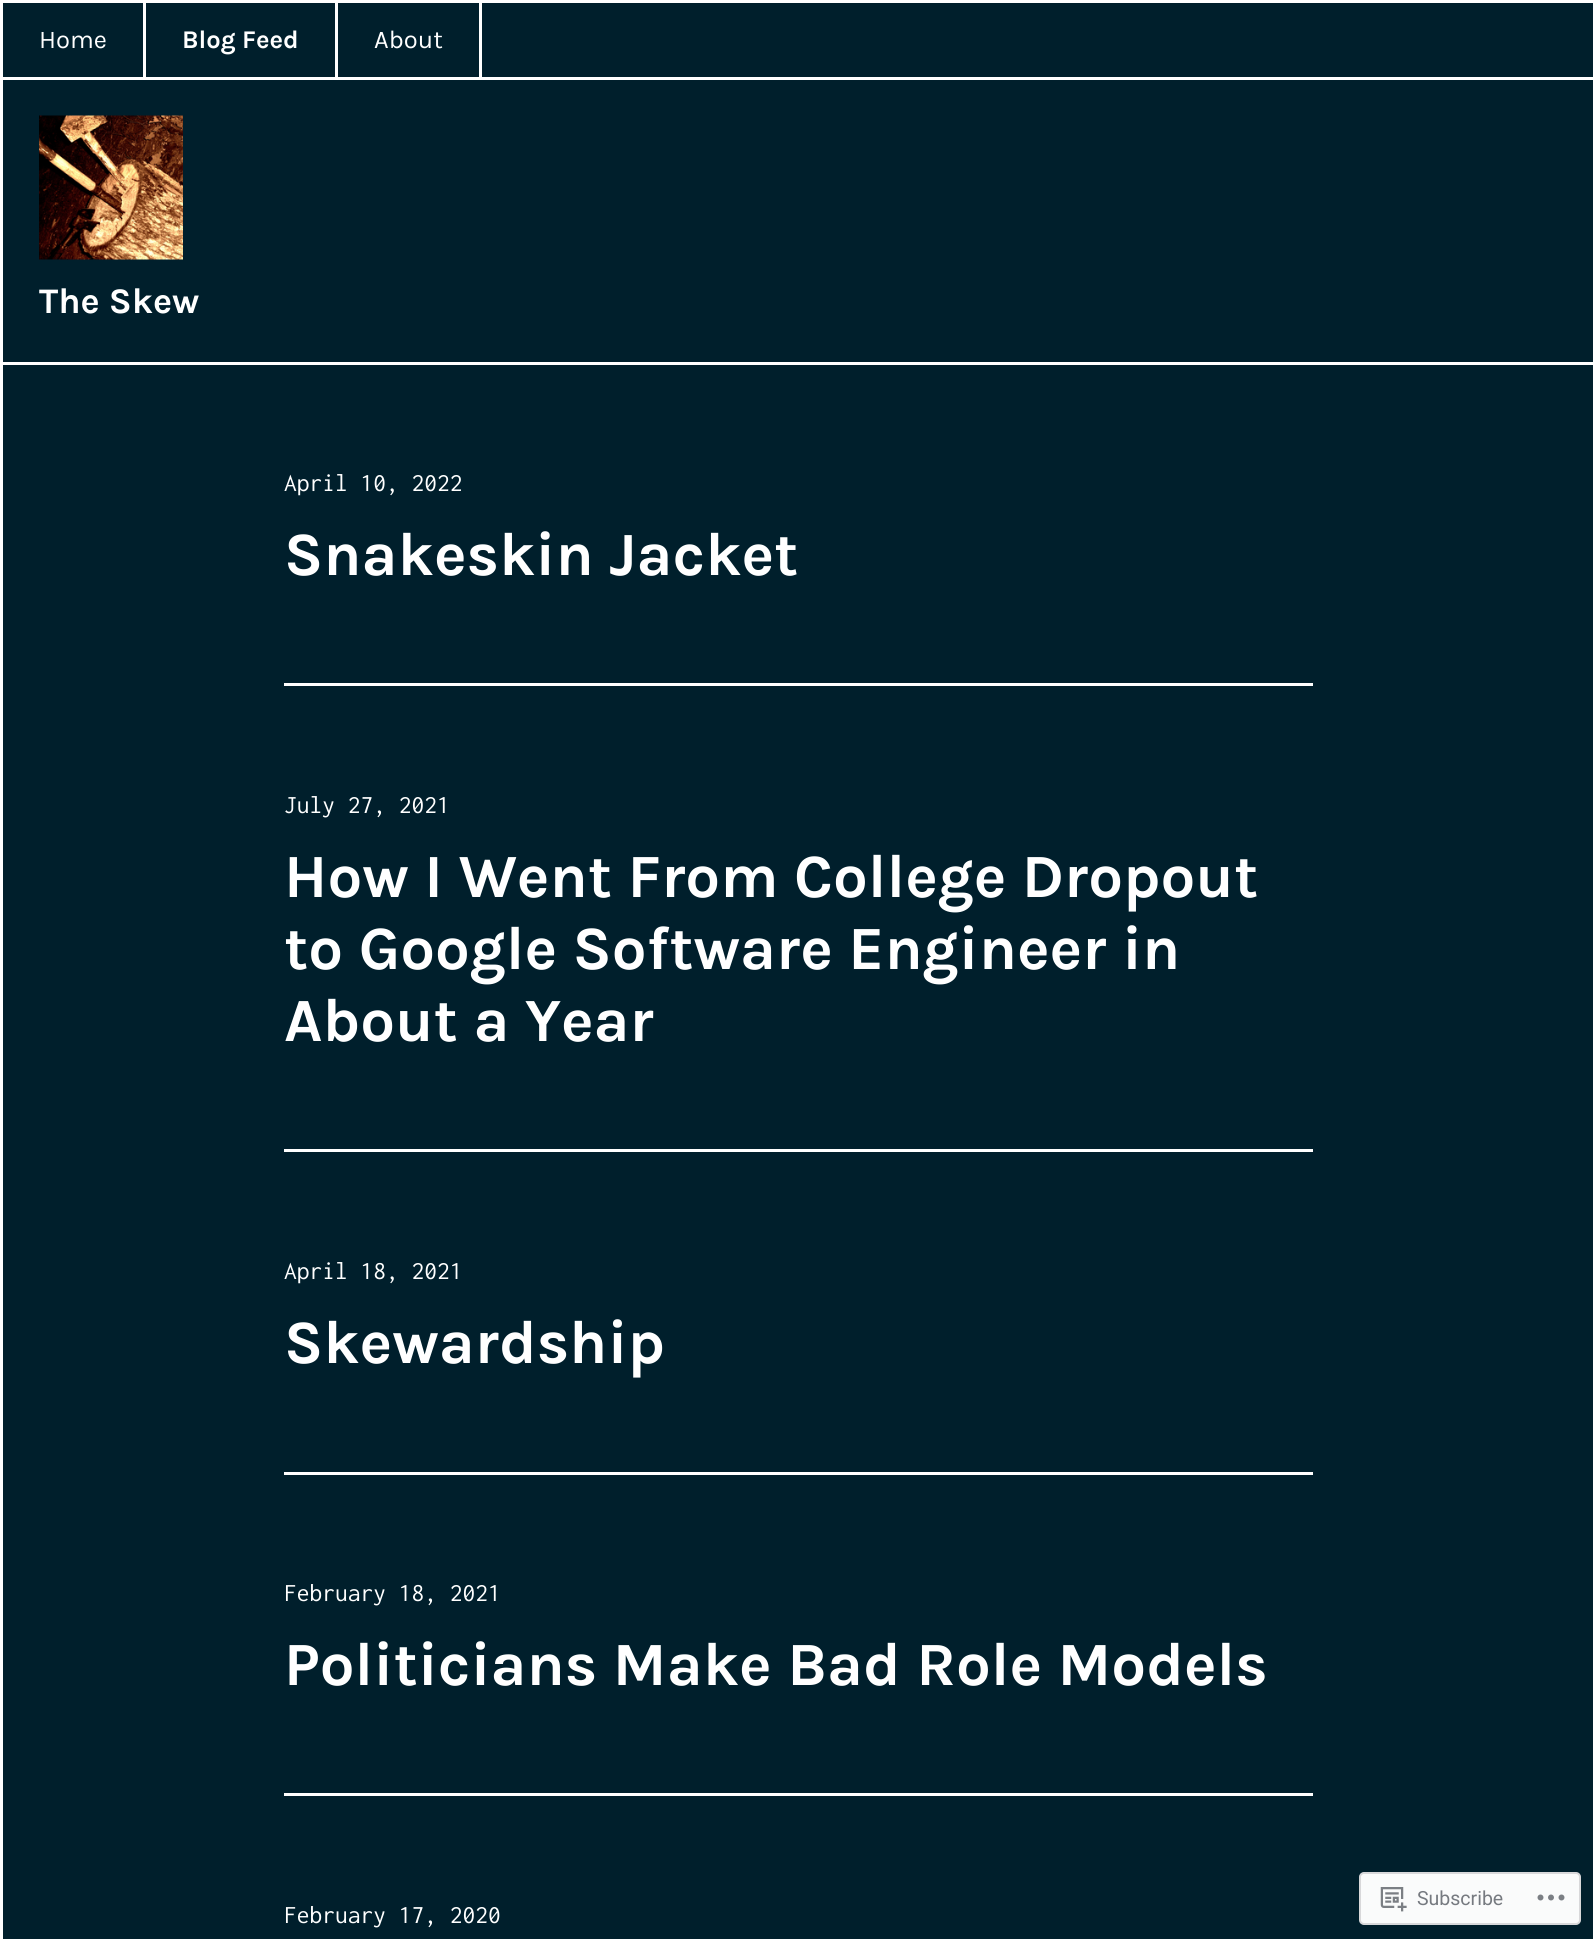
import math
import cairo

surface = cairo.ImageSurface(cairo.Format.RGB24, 1595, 1939)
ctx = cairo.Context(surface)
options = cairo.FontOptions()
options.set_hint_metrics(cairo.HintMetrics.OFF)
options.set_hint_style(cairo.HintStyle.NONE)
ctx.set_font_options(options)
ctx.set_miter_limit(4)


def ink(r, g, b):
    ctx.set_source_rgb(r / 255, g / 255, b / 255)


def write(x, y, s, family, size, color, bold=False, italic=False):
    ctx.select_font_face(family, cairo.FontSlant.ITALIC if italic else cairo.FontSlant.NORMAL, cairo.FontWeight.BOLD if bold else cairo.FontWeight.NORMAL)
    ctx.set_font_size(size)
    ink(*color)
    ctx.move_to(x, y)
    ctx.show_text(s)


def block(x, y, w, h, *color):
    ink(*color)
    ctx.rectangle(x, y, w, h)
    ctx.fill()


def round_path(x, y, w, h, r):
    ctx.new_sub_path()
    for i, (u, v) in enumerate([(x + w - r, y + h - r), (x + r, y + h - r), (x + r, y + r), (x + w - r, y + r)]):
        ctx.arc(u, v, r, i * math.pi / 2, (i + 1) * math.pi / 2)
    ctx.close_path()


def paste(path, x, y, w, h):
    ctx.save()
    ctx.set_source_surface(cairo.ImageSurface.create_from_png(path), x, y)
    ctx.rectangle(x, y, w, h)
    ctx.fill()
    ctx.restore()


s1 = dict(family="Karla", size=25.5, color=(255, 255, 255))
s2 = dict(family="Karla", size=25.5, color=(255, 255, 255), bold=True)
s3 = dict(family="Karla", size=36, color=(255, 255, 255), bold=True)
s4 = dict(family="Inconsolata", size=25.5, color=(255, 255, 255))
s5 = dict(family="Karla", size=61.5, color=(255, 255, 255), bold=True)
s6 = dict(family="Roboto", size=19.5, color=(118, 122, 128))

ink(0, 31, 44)
ctx.paint()
ctx.rectangle(1.5, 1.5, 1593, 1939)
ink(255, 255, 255)
ctx.set_line_width(3)
ctx.stroke()
block(3, 362, 1590, 3, 255, 255, 255)
block(3, 77, 1590, 3, 255, 255, 255)
block(143, 3, 3, 77, 255, 255, 255)
write(39, 48, "Home", **s1)
block(335, 3, 3, 77, 255, 255, 255)
write(182, 48, "Blog Feed", **s2)
block(479, 3, 3, 77, 255, 255, 255)
write(374, 48, "About", **s1)
paste("pic1.png", 39, 115, 144, 145)
write(39, 313, "The Skew", **s3)
write(284, 491, "April 10, 2022", **s4)
write(284, 575, "Snakeskin Jacket", **s5)
block(284, 683, 1029, 3, 255, 255, 255)
write(284, 813, "July 27, 2021", **s4)
write(284, 897, "How I Went From College Dropout", **s5)
write(284, 969, "to Google Software Engineer in", **s5)
write(284, 1041, "About a Year", **s5)
block(284, 1149, 1029, 3, 255, 255, 255)
write(284, 1279, "April 18, 2021", **s4)
write(284, 1363, "Skewardship", **s5)
block(284, 1472, 1029, 3, 255, 255, 255)
write(284, 1601, "February 18, 2021", **s4)
write(284, 1685, "Politicians Make Bad Role Models", **s5)
block(284, 1793, 1029, 3, 255, 255, 255)
write(284, 1923, "February 17, 2020", **s4)
ink(250, 251, 251)
round_path(1360, 1873, 220, 51, 4)
ctx.fill_preserve()
ink(216, 216, 218)
ctx.set_line_width(2)
ctx.stroke()
paste("pic2.png", 1380, 1887, 27, 25)
write(1417, 1905, "Subscribe", **s6)
paste("pic3.png", 1537, 1894, 28, 7)
surface.write_to_png("screenshot.png")
